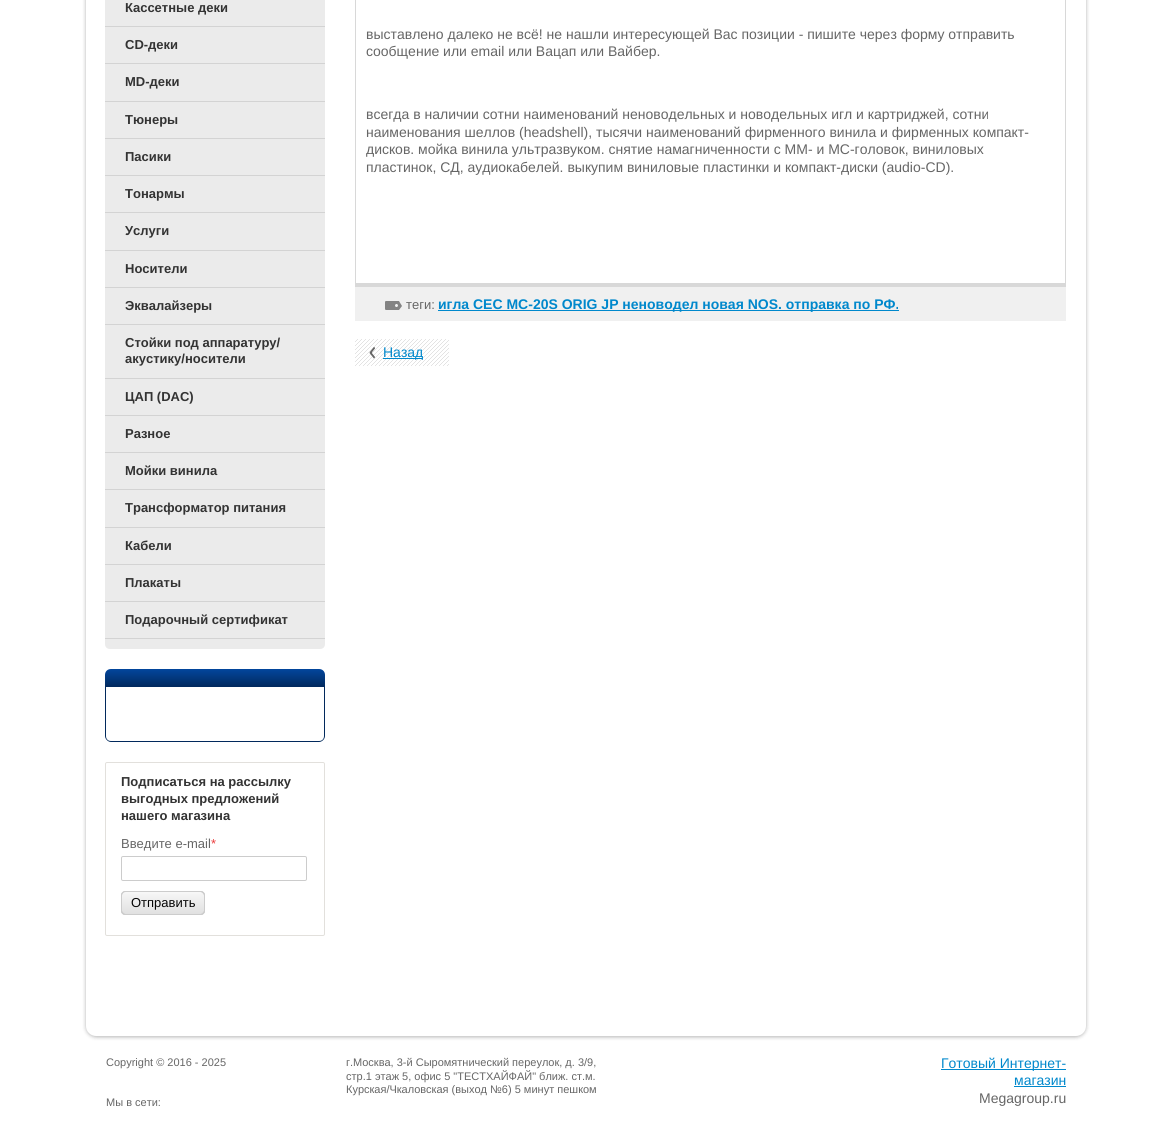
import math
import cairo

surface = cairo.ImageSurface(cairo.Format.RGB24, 1172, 1140)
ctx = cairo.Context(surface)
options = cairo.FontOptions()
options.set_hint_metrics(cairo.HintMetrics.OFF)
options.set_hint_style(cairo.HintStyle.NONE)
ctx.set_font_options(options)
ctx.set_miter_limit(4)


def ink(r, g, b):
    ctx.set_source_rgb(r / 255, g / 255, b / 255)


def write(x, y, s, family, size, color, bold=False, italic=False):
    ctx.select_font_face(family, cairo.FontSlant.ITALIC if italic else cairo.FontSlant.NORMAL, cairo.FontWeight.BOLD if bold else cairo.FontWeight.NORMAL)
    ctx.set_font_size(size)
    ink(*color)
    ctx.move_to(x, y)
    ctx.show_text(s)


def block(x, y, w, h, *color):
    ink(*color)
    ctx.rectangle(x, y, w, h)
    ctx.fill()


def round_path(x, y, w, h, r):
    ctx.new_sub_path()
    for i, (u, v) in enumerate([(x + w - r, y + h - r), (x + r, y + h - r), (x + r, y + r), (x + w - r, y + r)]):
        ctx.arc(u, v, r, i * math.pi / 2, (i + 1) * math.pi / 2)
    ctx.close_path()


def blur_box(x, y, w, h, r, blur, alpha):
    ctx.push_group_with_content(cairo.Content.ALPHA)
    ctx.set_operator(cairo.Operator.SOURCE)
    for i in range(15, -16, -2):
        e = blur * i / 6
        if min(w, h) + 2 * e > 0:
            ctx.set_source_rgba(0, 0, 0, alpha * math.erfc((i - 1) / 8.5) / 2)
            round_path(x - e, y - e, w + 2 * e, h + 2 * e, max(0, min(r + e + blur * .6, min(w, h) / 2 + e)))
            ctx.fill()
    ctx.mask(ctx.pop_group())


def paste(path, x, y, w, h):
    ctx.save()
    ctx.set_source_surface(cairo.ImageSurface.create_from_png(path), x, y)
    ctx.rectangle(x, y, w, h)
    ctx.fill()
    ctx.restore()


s1 = dict(family="Liberation Sans", size=13, color=(51, 51, 51), bold=True)
s2 = dict(family="Liberation Sans", size=13, color=(102, 102, 102))
s3 = dict(family="Liberation Sans", size=13, color=(235, 60, 60))
s4 = dict(family="Liberation Sans", size=13, color=(4, 4, 4))
s5 = dict(family="Liberation Sans", size=14, color=(102, 102, 102))
s6 = dict(family="Liberation Sans", size=14, color=(0, 136, 204), bold=True)
s7 = dict(family="Liberation Sans", size=14, color=(0, 136, 204))
s8 = dict(family="Liberation Sans", size=11, color=(102, 102, 102))

ink(255, 255, 255)
ctx.paint()
ink(0, 0, 0)
blur_box(86, -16, 1000, 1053, 10, 2, 0.3)
ink(255, 255, 255)
round_path(86, -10, 1000, 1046, 10)
ctx.fill()
ink(235, 235, 235)
ctx.new_path()
ctx.move_to(105, -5)
ctx.line_to(325, -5)
ctx.line_to(325, 644)
ctx.curve_to(325, 647, 323, 649, 320, 649)
ctx.line_to(110, 649)
ctx.curve_to(107, 649, 105, 647, 105, 644)
ctx.close_path()
ctx.fill()
block(105, 26, 220, 1, 211, 211, 211)
write(125, 12, "Кассетные деки", **s1)
block(105, 63, 220, 1, 211, 211, 211)
write(125, 49, "CD-деки", **s1)
block(105, 101, 220, 1, 211, 211, 211)
write(125, 86, "MD-деки", **s1)
block(105, 138, 220, 1, 211, 211, 211)
write(125, 124, "Тюнеры", **s1)
block(105, 175, 220, 1, 211, 211, 211)
write(125, 161, "Пасики", **s1)
block(105, 212, 220, 1, 211, 211, 211)
write(125, 198, "Тонармы", **s1)
block(105, 250, 220, 1, 211, 211, 211)
write(125, 235, "Услуги", **s1)
block(105, 287, 220, 1, 211, 211, 211)
write(125, 273, "Носители", **s1)
block(105, 324, 220, 1, 211, 211, 211)
write(125, 310, "Эквалайзеры", **s1)
block(105, 378, 220, 1, 211, 211, 211)
write(125, 347, "Стойки под аппаратуру/", **s1)
write(125, 363, "акустику/носители", **s1)
block(105, 415, 220, 1, 211, 211, 211)
write(125, 401, "ЦАП (DAC)", **s1)
block(105, 452, 220, 1, 211, 211, 211)
write(125, 438, "Разное", **s1)
block(105, 489, 220, 1, 211, 211, 211)
write(125, 475, "Мойки винила", **s1)
block(105, 527, 220, 1, 211, 211, 211)
write(125, 512, "Трансформатор питания", **s1)
block(105, 564, 220, 1, 211, 211, 211)
write(125, 550, "Кабели", **s1)
block(105, 601, 220, 1, 211, 211, 211)
write(125, 587, "Плакаты", **s1)
block(105, 638, 220, 1, 211, 211, 211)
write(125, 624, "Подарочный сертификат", **s1)
gradient = cairo.LinearGradient(215, 687, 215, 669)
gradient.add_color_stop_rgba(0, 0.004, 0.161, 0.365, 1)
gradient.add_color_stop_rgba(1, 0.008, 0.275, 0.616, 1)
ctx.set_source(gradient)
ctx.new_path()
ctx.move_to(111, 669)
ctx.line_to(319, 669)
ctx.curve_to(322.5, 669, 325, 671.5, 325, 675)
ctx.line_to(325, 687)
ctx.line_to(105, 687)
ctx.line_to(105, 675)
ctx.curve_to(105, 671.5, 107.5, 669, 111, 669)
ctx.close_path()
ctx.fill()
ink(1, 41, 92)
ctx.set_fill_rule(cairo.FillRule.EVEN_ODD)
ctx.new_path()
ctx.move_to(105, 687)
ctx.line_to(325, 687)
ctx.line_to(325, 736)
ctx.curve_to(325, 739, 322, 742, 319, 742)
ctx.line_to(111, 742)
ctx.curve_to(108, 742, 105, 739, 105, 736)
ctx.close_path()
ctx.move_to(106, 687)
ctx.line_to(324, 687)
ctx.line_to(324, 736)
ctx.curve_to(324, 739, 322, 741, 319, 741)
ctx.line_to(111, 741)
ctx.curve_to(108, 741, 106, 739, 106, 736)
ctx.close_path()
ctx.fill()
round_path(105.5, 762.5, 219, 173, 1.5)
ink(226, 224, 220)
ctx.set_line_width(1)
ctx.stroke()
write(121, 786, "Подписаться на рассылку", **s1)
write(121, 803, "выгодных предложений", **s1)
write(121, 820, "нашего магазина", **s1)
write(121, 848, "Введите e-mail", **s2)
write(211, 848, "*", **s3)
round_path(121.5, 856.5, 185, 24, 1.5)
ink(204, 204, 204)
ctx.stroke()
gradient = cairo.LinearGradient(163, 891, 163, 915)
gradient.add_color_stop_rgba(0, 0.973, 0.973, 0.973, 1)
gradient.add_color_stop_rgba(1, 0.875, 0.875, 0.875, 1)
ctx.set_source(gradient)
round_path(121, 891, 84, 24, 4)
ctx.fill()
ink(204, 204, 204)
ctx.set_fill_rule(cairo.FillRule.WINDING)
ctx.new_path()
ctx.move_to(123, 892)
ctx.curve_to(122, 892, 121, 894, 121, 895)
ctx.line_to(121, 911)
ctx.curve_to(121, 913, 123, 915, 125, 915)
ctx.line_to(201, 915)
ctx.curve_to(202, 915, 204, 914, 204, 913)
ctx.line_to(202, 914)
ctx.line_to(126, 914)
ctx.curve_to(124, 914, 122, 912, 122, 910)
ctx.line_to(122, 894)
ctx.close_path()
ctx.fill()
ctx.new_path()
ctx.move_to(124, 892)
ctx.line_to(200, 892)
ctx.curve_to(202, 892, 204, 894, 204, 896)
ctx.line_to(204, 912)
ctx.line_to(203, 914)
ctx.curve_to(204, 914, 205, 912, 205, 911)
ctx.line_to(205, 895)
ctx.curve_to(205, 893, 203, 891, 201, 891)
ctx.line_to(125, 891)
ctx.curve_to(124, 891, 122, 892, 122, 893)
ctx.close_path()
ctx.fill()
ctx.new_path()
ctx.move_to(122, 913)
ctx.curve_to(122, 914, 124, 915, 125, 915)
ctx.line_to(201, 915)
ctx.curve_to(203, 915, 205, 913, 205, 911)
ctx.line_to(205, 895)
ctx.curve_to(205, 894, 204, 892, 203, 892)
ctx.line_to(204, 894)
ctx.line_to(204, 910)
ctx.curve_to(204, 912, 202, 914, 200, 914)
ctx.line_to(124, 914)
ctx.close_path()
ctx.fill()
ctx.new_path()
ctx.move_to(126, 892)
ctx.line_to(202, 892)
ctx.line_to(204, 893)
ctx.curve_to(204, 892, 202, 891, 201, 891)
ctx.line_to(125, 891)
ctx.curve_to(123, 891, 121, 893, 121, 895)
ctx.line_to(121, 911)
ctx.curve_to(121, 912, 122, 914, 123, 914)
ctx.curve_to(121, 912, 122, 907, 122, 904)
ctx.curve_to(122, 901, 120, 892, 126, 892)
ctx.close_path()
ctx.fill()
write(131, 907, "Отправить", **s4)
block(355, 283, 711, 4, 216, 216, 216)
ctx.set_fill_rule(cairo.FillRule.EVEN_ODD)
ctx.new_path()
ctx.move_to(355, -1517)
ctx.line_to(1060, -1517)
ctx.curve_to(1063, -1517, 1066, -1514, 1066, -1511)
ctx.line_to(1066, 283)
ctx.line_to(355, 283)
ctx.close_path()
ctx.move_to(356, -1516)
ctx.line_to(1060, -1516)
ctx.curve_to(1063, -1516, 1065, -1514, 1065, -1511)
ctx.line_to(1065, 283)
ctx.line_to(356, 283)
ctx.close_path()
ctx.fill()
write(366, 39, "выставлено далеко не всё! не нашли интересующей Вас позиции - пишите через форму отправить", **s5)
write(366, 56, "сообщение или email или Вацап или Вайбер.", **s5)
write(366, 119, "всегда в наличии сотни наименований неноводельных и новодельных игл и картриджей, сотни", **s5)
write(366, 137, "наименования шеллов (headshell), тысячи наименований фирменного винила и фирменных компакт-", **s5)
write(366, 154, "дисков. мойка винила ультразвуком. снятие намагниченности с ММ- и МС-головок, виниловых", **s5)
write(366, 172, "пластинок, СД, аудиокабелей. выкупим виниловые пластинки и компакт-диски (audio-CD).", **s5)
block(355, 287, 711, 34, 240, 240, 240)
paste("pic1.png", 385, 301, 17, 9)
write(406, 309, "теги:", **s2)
block(438, 310, 461, 1, 0, 136, 204)
write(438, 309, "игла CEC MC-20S ORIG JP неноводел новая NOS. отправка по РФ.", **s6)
paste("pic2.png", 355, 339, 94, 27)
paste("pic3.png", 369, 347, 6, 12)
block(383, 358, 40, 1, 0, 136, 204)
write(383, 357, "Назад", **s7)
write(106, 1066, "Copyright © 2016 - 2025", **s8)
write(106, 1106, "Мы в сети:", **s8)
write(346, 1066, "г.Москва, 3-й Сыромятнический переулок, д. 3/9,", **s8)
write(346, 1080, "стр.1 этаж 5, офис 5 \"ТЕСТХАЙФАЙ\" ближ. ст.м.", **s8)
write(346, 1093, "Курская/Чкаловская (выход №6) 5 минут пешком", **s8)
block(941, 1069, 125, 1, 0, 136, 204)
write(941, 1068, "Готовый Интернет-", **s7)
write(1014, 1085, "магазин", **s7)
block(1014, 1086, 52, 1, 0, 136, 204)
write(979, 1103, "Megagroup.ru", **s5)
surface.write_to_png("screenshot.png")
